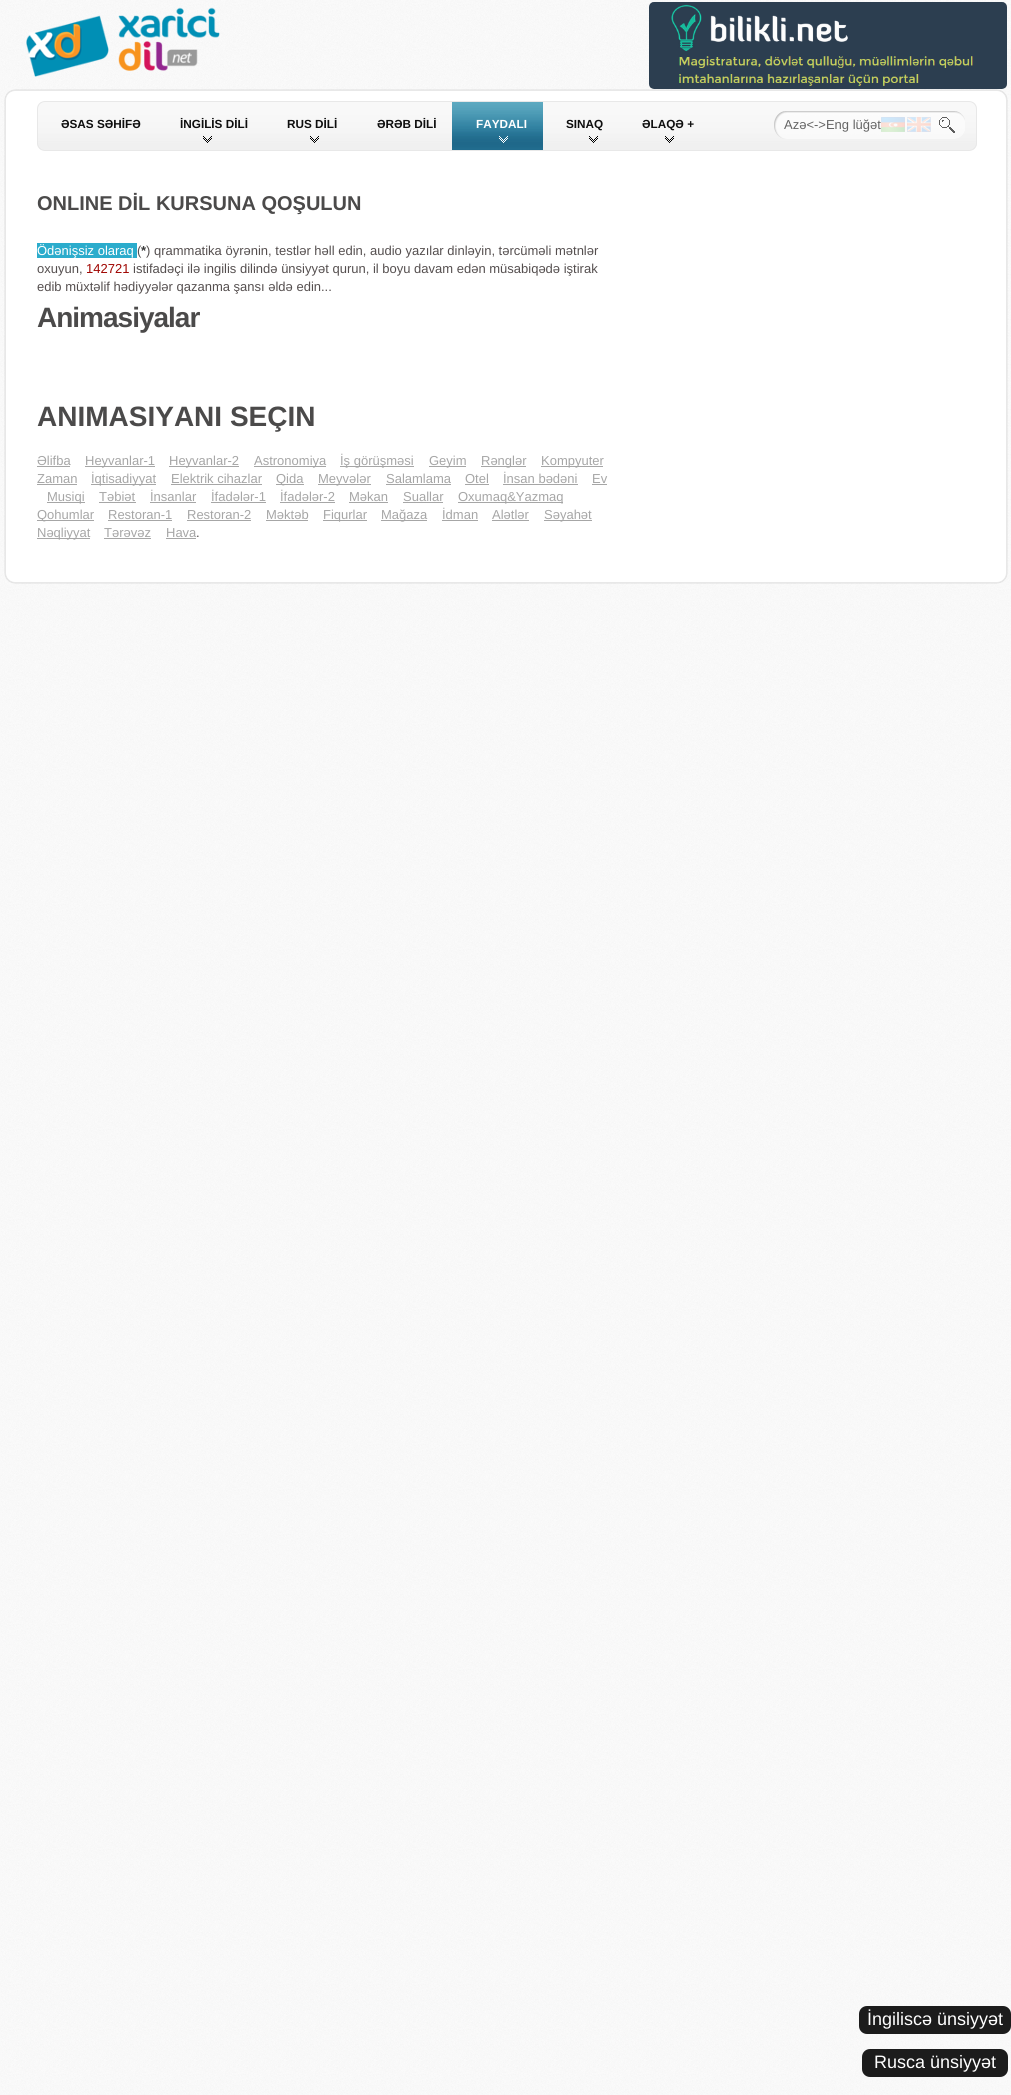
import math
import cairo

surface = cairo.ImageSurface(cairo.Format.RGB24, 1011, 2095)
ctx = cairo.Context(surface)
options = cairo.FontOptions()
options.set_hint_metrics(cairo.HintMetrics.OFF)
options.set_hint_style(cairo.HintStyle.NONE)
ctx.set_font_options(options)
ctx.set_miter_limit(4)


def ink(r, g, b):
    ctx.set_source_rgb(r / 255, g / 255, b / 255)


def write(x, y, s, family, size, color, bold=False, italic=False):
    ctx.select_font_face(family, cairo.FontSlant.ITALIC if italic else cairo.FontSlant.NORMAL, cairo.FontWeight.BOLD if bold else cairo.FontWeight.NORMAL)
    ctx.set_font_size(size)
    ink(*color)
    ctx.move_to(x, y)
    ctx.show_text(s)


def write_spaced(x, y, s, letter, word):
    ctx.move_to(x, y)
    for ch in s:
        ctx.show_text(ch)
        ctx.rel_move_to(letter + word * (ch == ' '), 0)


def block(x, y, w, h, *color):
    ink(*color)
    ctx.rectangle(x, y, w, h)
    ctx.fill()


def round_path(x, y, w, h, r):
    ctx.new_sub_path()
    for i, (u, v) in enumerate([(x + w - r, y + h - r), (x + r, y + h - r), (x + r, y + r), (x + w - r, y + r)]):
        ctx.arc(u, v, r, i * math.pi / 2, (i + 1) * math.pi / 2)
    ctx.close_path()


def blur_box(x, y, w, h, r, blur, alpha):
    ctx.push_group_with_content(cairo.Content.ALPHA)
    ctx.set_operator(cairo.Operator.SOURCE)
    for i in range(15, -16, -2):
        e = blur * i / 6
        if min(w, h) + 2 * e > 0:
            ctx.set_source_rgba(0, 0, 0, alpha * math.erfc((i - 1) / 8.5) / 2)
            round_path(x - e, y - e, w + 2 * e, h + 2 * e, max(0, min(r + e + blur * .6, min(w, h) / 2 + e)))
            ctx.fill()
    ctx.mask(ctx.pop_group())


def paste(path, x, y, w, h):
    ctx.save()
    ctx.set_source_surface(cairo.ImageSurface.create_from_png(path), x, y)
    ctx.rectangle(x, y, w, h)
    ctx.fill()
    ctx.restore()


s1 = dict(family="Liberation Sans", size=11.75, color=(14, 14, 14), bold=True)
s2 = dict(family="Liberation Sans", size=11.75, color=(255, 255, 255), bold=True)
s3 = dict(family="Liberation Sans", size=13, color=(100, 100, 100))
s4 = dict(family="Liberation Sans", size=20, color=(75, 74, 74), bold=True)
s5 = dict(family="Liberation Sans", size=13, color=(255, 255, 255))
s6 = dict(family="Liberation Sans", size=13, color=(85, 79, 79))
s7 = dict(family="Liberation Sans", size=13, color=(58, 58, 58), bold=True)
s8 = dict(family="Liberation Sans", size=13, color=(159, 4, 0))
s9 = dict(family="Liberation Sans", size=28, color=(75, 74, 74), bold=True)
s10 = dict(family="Liberation Sans", size=13, color=(166, 166, 166))
s11 = dict(family="Liberation Sans", size=18, color=(255, 255, 255))

ink(255, 255, 255)
ctx.paint()
paste("pic1.png", 0, 0, 1011, 2095)
paste("pic2.png", 26, 7, 194, 70)
paste("pic3.png", 649, 2, 358, 87)
ink(0, 0, 0)
blur_box(5, 90, 1002, 493, 10, 0.5, 0.2)
ink(255, 255, 255)
round_path(5.5, 90.5, 1001, 492, 9.5)
ctx.fill_preserve()
ink(232, 232, 232)
ctx.set_line_width(1)
ctx.stroke()
paste("pic4.png", 37, 102, 940, 48)
round_path(37.5, 101.5, 939, 49, 7.5)
ctx.stroke()
write(61, 128, "ƏSAS SƏHİFƏ", **s1)
write(180, 128, "İNGİLİS DİLİ", **s1)
paste("pic5.png", 203, 136, 9, 7)
write(287, 128, "RUS DİLİ", **s1)
paste("pic5.png", 310, 136, 9, 7)
write(377, 128, "ƏRƏB DİLİ", **s1)
paste("pic6.png", 452, 102, 91, 48)
write(476, 128, "FAYDALI", **s2)
paste("pic7.png", 499, 136, 9, 7)
write(566, 128, "SINAQ", **s1)
paste("pic5.png", 589, 136, 9, 7)
write(642, 128, "ƏLAQƏ +", **s1)
paste("pic5.png", 665, 136, 9, 7)
paste("pic8.png", 774, 111, 157, 28)
ctx.set_source_rgba(0.984, 0.984, 0.984, 0.6)
ctx.rectangle(784, 113, 1, 1)
ctx.fill()
paste("pic9.png", 881, 117, 50, 15)
write(784, 129, "Azə<->Eng lüğət", **s3)
paste("pic10.png", 931, 111, 34, 28)
write(37, 210, "ONLINE DİL KURSUNA QOŞULUN", **s4)
block(37, 243, 100, 15, 43, 172, 204)
write(37, 255, "Ödənişsiz olaraq", **s5)
write(137, 255, "(", **s6)
write(141, 255, "*", **s7)
write(146, 255, ") qrammatika öyrənin, testlər həll edin, audio yazılar dinləyin, tərcüməli mətnlər", **s6)
write(37, 273, "oxuyun,", **s6)
write(86, 273, "142721", **s8)
write(133, 273, "istifadəçi ilə ingilis dilində ünsiyyət qurun, il boyu davam edən müsabiqədə iştirak", **s6)
write(37, 291, "edib müxtəlif hədiyyələr qazanma şansı əldə edin...", **s6)
ctx.select_font_face("Liberation Sans", cairo.FontSlant.NORMAL, cairo.FontWeight.BOLD)
ctx.set_font_size(28)
ink(75, 74, 74)
write_spaced(37, 327, "Animasiyalar", -1, 0)
write(37, 426, "ANIMASIYANI SEÇIN", **s9)
write(37, 465, "Əlifba", **s10)
block(37, 466, 33, 1, 166, 166, 166)
block(85, 466, 70, 1, 166, 166, 166)
write(85, 465, "Heyvanlar-1", **s10)
block(169, 466, 70, 1, 166, 166, 166)
write(169, 465, "Heyvanlar-2", **s10)
block(254, 466, 72, 1, 166, 166, 166)
write(254, 465, "Astronomiya", **s10)
block(340, 466, 74, 1, 166, 166, 166)
write(340, 465, "İş görüşməsi", **s10)
block(429, 466, 37, 1, 166, 166, 166)
write(429, 465, "Geyim", **s10)
block(481, 466, 45, 1, 166, 166, 166)
write(481, 465, "Rənglər", **s10)
block(541, 466, 62, 1, 166, 166, 166)
write(541, 465, "Kompyuter", **s10)
write(37, 483, "Zaman", **s10)
block(37, 484, 40, 1, 166, 166, 166)
block(91, 484, 65, 1, 166, 166, 166)
write(91, 483, "İqtisadiyyat", **s10)
write(171, 483, "Elektrik cihazlar", **s10)
block(171, 484, 91, 1, 166, 166, 166)
block(276, 484, 28, 1, 166, 166, 166)
write(276, 483, "Qida", **s10)
block(318, 484, 53, 1, 166, 166, 166)
write(318, 483, "Meyvələr", **s10)
write(386, 483, "Salamlama", **s10)
block(386, 484, 65, 1, 166, 166, 166)
write(465, 483, "Otel", **s10)
block(465, 484, 24, 1, 166, 166, 166)
write(503, 483, "İnsan bədəni", **s10)
block(503, 484, 75, 1, 166, 166, 166)
write(592, 483, "Ev", **s10)
block(592, 484, 15, 1, 166, 166, 166)
block(47, 502, 38, 1, 166, 166, 166)
write(47, 501, "Musiqi", **s10)
write(99, 501, "Təbiət", **s10)
block(99, 502, 37, 1, 166, 166, 166)
write(150, 501, "İnsanlar", **s10)
block(150, 502, 46, 1, 166, 166, 166)
write(211, 501, "İfadələr-1", **s10)
block(211, 502, 55, 1, 166, 166, 166)
write(280, 501, "İfadələr-2", **s10)
block(280, 502, 55, 1, 166, 166, 166)
write(349, 501, "Məkan", **s10)
block(349, 502, 39, 1, 166, 166, 166)
write(403, 501, "Suallar", **s10)
block(403, 502, 40, 1, 166, 166, 166)
block(458, 502, 105, 1, 166, 166, 166)
write(458, 501, "Oxumaq&Yazmaq", **s10)
block(37, 520, 57, 1, 166, 166, 166)
write(37, 519, "Qohumlar", **s10)
write(108, 519, "Restoran-1", **s10)
block(108, 520, 64, 1, 166, 166, 166)
write(187, 519, "Restoran-2", **s10)
block(187, 520, 64, 1, 166, 166, 166)
write(266, 519, "Məktəb", **s10)
block(266, 520, 42, 1, 166, 166, 166)
block(323, 520, 44, 1, 166, 166, 166)
write(323, 519, "Fiqurlar", **s10)
block(381, 520, 46, 1, 166, 166, 166)
write(381, 519, "Mağaza", **s10)
write(442, 519, "İdman", **s10)
block(442, 520, 36, 1, 166, 166, 166)
write(492, 519, "Alətlər", **s10)
block(492, 520, 37, 1, 166, 166, 166)
block(544, 520, 48, 1, 166, 166, 166)
write(544, 519, "Səyahət", **s10)
block(37, 538, 53, 1, 166, 166, 166)
write(37, 537, "Nəqliyyat", **s10)
write(104, 537, "Tərəvəz", **s10)
block(104, 538, 47, 1, 166, 166, 166)
write(166, 537, "Hava", **s10)
block(166, 538, 30, 1, 166, 166, 166)
write(196, 537, ".", **s6)
ink(28, 28, 28)
round_path(859, 2006, 152, 28, 8)
ctx.fill()
write(867, 2025, "İngiliscə ünsiyyət", **s11)
ink(28, 28, 28)
round_path(862, 2049, 146, 28, 8)
ctx.fill()
write(874, 2068, "Rusca ünsiyyət", **s11)
surface.write_to_png("screenshot.png")
